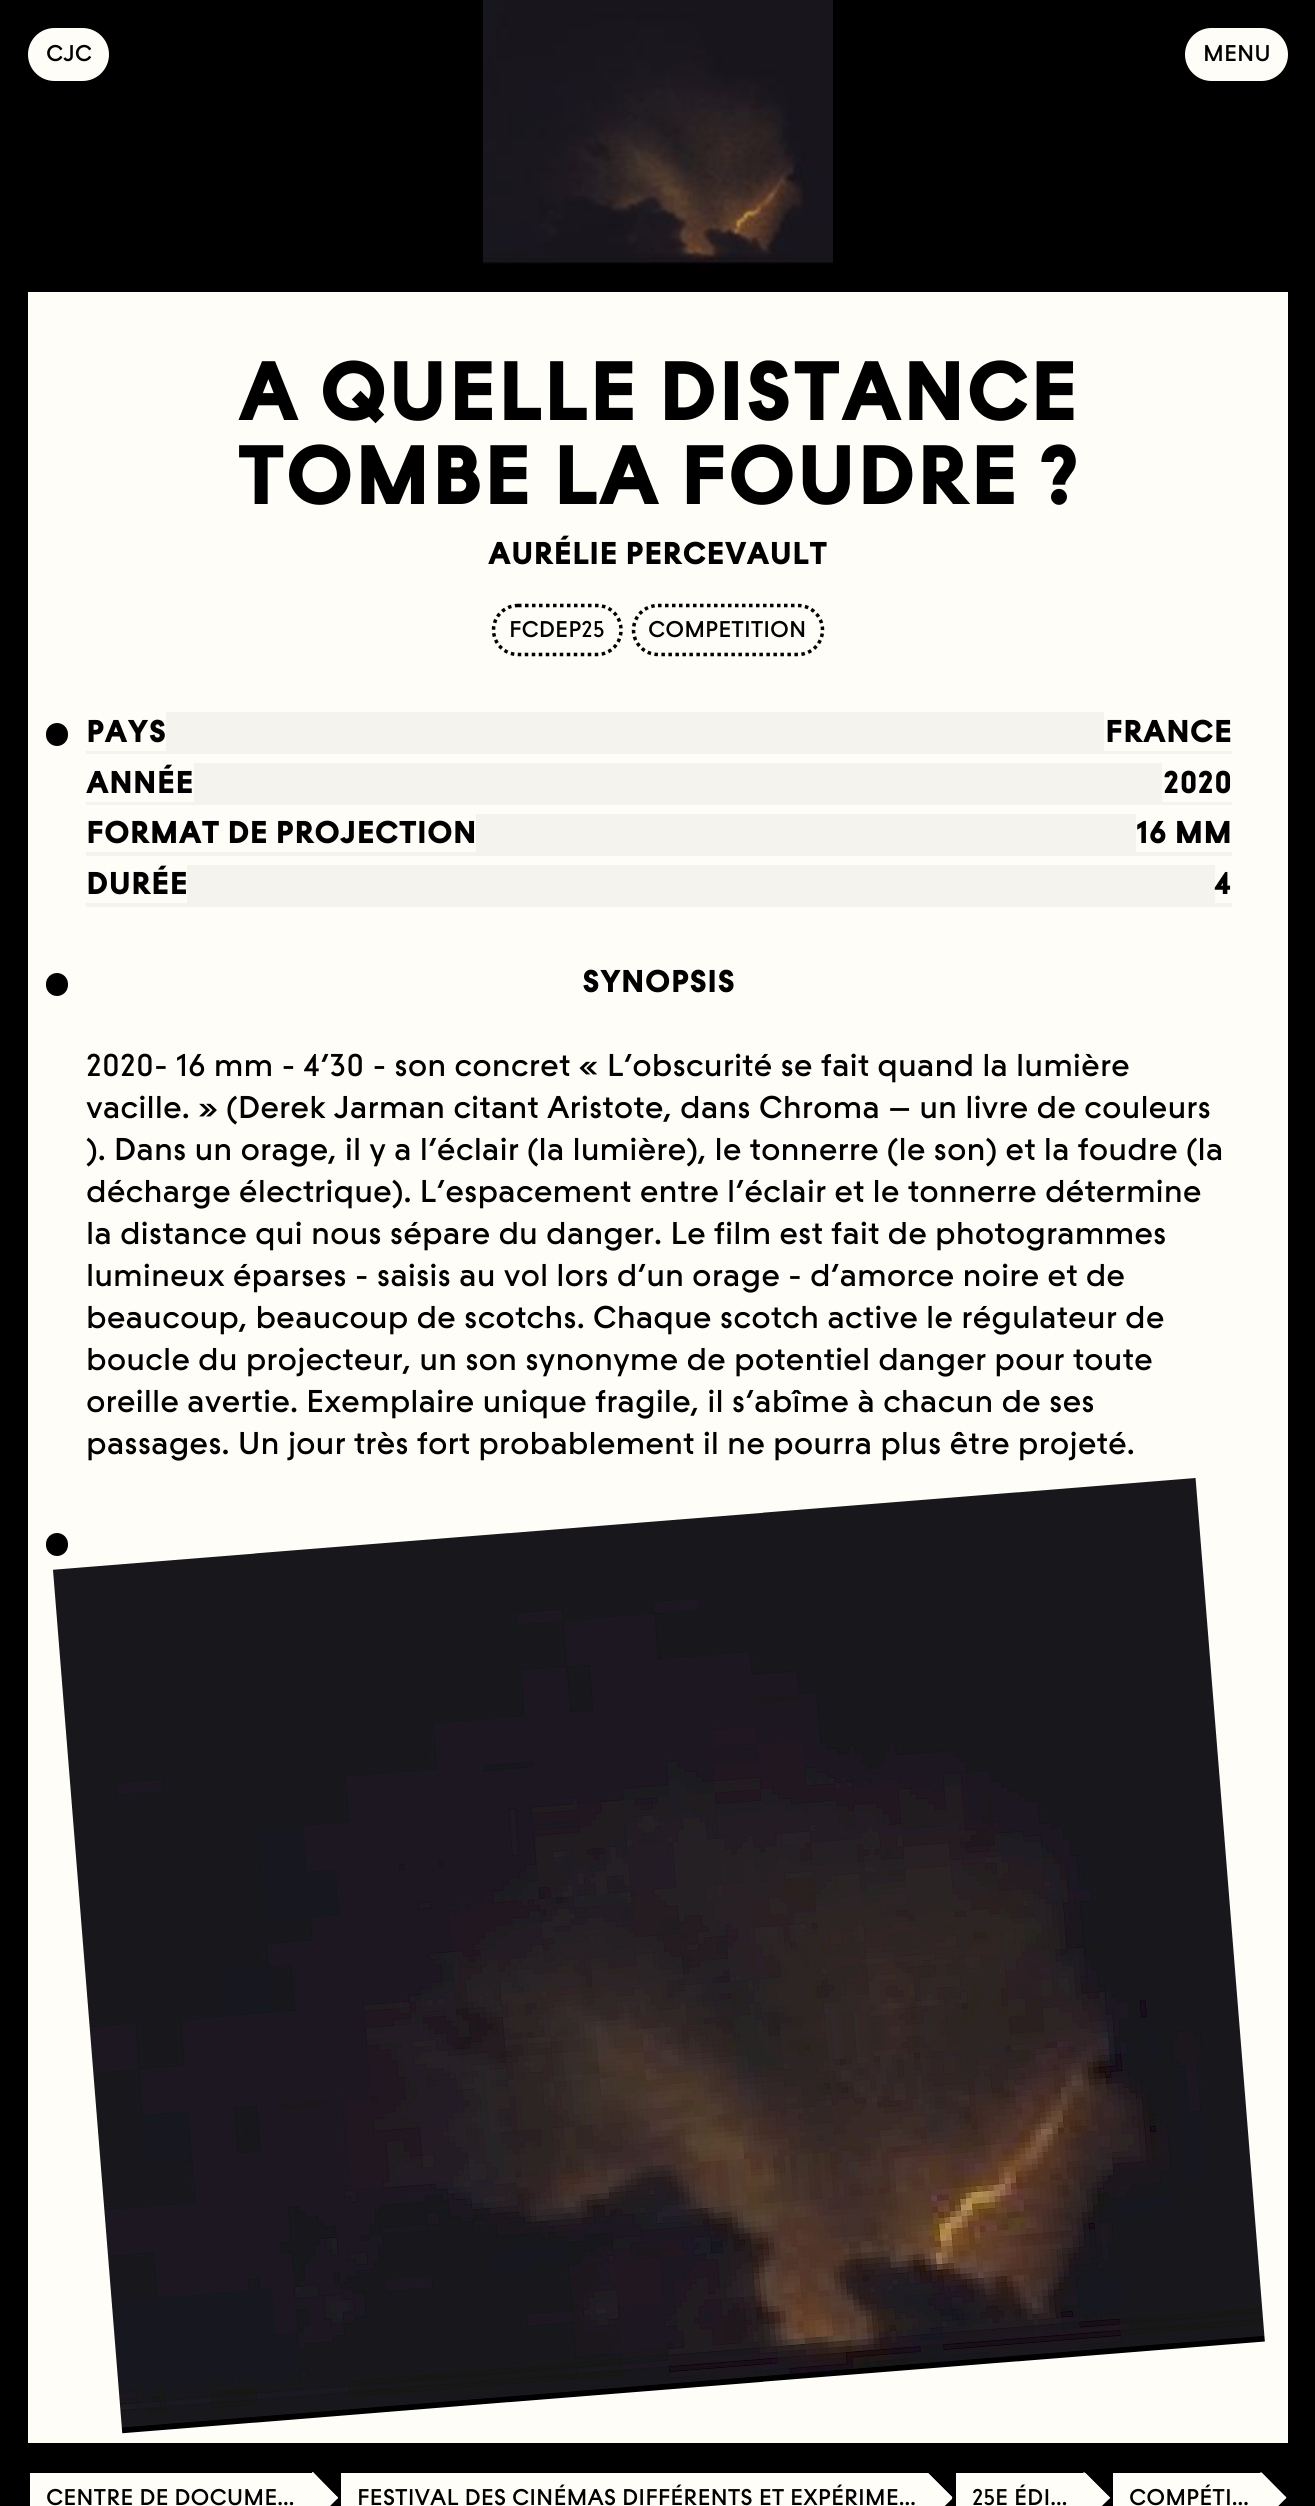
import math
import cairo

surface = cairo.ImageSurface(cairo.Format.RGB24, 1315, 2506)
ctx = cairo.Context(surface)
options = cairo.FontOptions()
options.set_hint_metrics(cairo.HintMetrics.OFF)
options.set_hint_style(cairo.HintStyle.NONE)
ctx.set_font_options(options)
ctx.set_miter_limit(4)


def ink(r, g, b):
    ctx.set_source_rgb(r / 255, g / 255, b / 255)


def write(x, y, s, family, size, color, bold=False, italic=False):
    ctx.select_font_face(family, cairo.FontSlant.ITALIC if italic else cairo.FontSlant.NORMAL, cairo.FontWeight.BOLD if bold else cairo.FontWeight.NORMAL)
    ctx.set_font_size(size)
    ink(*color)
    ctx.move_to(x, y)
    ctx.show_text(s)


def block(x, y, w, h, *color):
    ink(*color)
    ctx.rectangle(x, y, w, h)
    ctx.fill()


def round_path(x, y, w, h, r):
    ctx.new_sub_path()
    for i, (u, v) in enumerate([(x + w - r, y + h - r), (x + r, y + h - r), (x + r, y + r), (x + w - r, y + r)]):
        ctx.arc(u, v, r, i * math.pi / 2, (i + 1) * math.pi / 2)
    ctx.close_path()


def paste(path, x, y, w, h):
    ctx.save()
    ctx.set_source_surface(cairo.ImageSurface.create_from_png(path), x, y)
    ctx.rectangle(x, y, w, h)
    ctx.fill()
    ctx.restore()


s1 = dict(family="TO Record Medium", size=22.75, color=(0, 0, 0))
s2 = dict(family="TO Record Black", size=84, color=(0, 0, 0))
s3 = dict(family="TO Record Black", size=31.5, color=(0, 0, 0))
s4 = dict(family="TO Record Medium", size=31.5, color=(0, 0, 0))

ink(0, 0, 0)
ctx.paint()
ink(255, 253, 248)
round_path(29, 29, 79, 51, 25.5)
ctx.fill_preserve()
ctx.stroke()
write(46, 61, "CJC", **s1)
ink(255, 253, 248)
round_path(1186, 29, 101, 51, 25.5)
ctx.fill_preserve()
ctx.stroke()
write(1203, 61, "MENU", **s1)
paste("pic1.png", 483, 0, 350, 264)
block(28, 292, 1260, 2151, 255, 253, 248)
write(238, 420, "A QUELLE DISTANCE", **s2)
write(237, 504, "TOMBE LA FOUDRE ?", **s2)
write(488, 564, "AURÉLIE PERCEVAULT", **s3)
ctx.new_path()
ctx.move_to(518, 605.5)
ctx.line_to(597, 605.5)
ctx.curve_to(610.5, 605.5, 621, 616.5, 621, 630)
ctx.curve_to(621, 643.5, 610.5, 654.5, 597, 654.5)
ctx.line_to(518, 654.5)
ctx.curve_to(504.5, 654.5, 493.5, 643.5, 493.5, 630)
ctx.curve_to(493.5, 616.5, 504.5, 605.5, 518, 605.5)
ctx.close_path()
ctx.set_line_width(3.5)
ctx.set_dash([3.5, 3.5])
ctx.stroke()
write(509, 637, "FCDEP25", **s1)
ctx.new_path()
ctx.move_to(658, 605.5)
ctx.line_to(798, 605.5)
ctx.curve_to(811.5, 605.5, 822.5, 616.5, 822.5, 630)
ctx.curve_to(822.5, 643.5, 811.5, 654.5, 798, 654.5)
ctx.line_to(658, 654.5)
ctx.curve_to(644.5, 654.5, 633.5, 643.5, 633.5, 630)
ctx.curve_to(633.5, 616.5, 644.5, 605.5, 658, 605.5)
ctx.close_path()
ctx.stroke()
write(648, 637, "COMPETITION", **s1)
round_path(46, 723, 22, 23, 11)
ctx.fill()
block(86, 712, 1146, 42, 245, 243, 238)
block(86, 712, 80, 39, 255, 253, 248)
write(86, 742, "PAYS", **s3)
block(1104, 712, 128, 39, 255, 253, 248)
write(1105, 742, "FRANCE", **s3)
block(86, 763, 1146, 42, 245, 243, 238)
block(86, 763, 108, 39, 255, 253, 248)
write(86, 793, "ANNÉE", **s3)
block(1162, 763, 70, 39, 255, 253, 248)
write(1163, 793, "2020", **s3)
block(86, 814, 1146, 42, 245, 243, 238)
block(86, 814, 390, 38, 255, 253, 248)
write(86, 843, "FORMAT DE PROJECTION", **s3)
block(1136, 814, 96, 38, 255, 253, 248)
write(1136, 843, "16 MM", **s3)
block(86, 865, 1146, 42, 245, 243, 238)
block(86, 865, 101, 38, 255, 253, 248)
write(86, 894, "DURÉE", **s3)
block(1215, 865, 17, 38, 255, 253, 248)
write(1214, 894, "4", **s3)
round_path(46, 973, 22, 23, 11)
ctx.fill()
write(582, 992, "SYNOPSIS", **s3)
write(86, 1076, "2020- 16 mm - 4’30 - son concret « L’obscurité se fait quand la lumière", **s4)
write(86, 1118, "vacille. » (Derek Jarman citant Aristote, dans Chroma – un livre de couleurs", **s4)
write(86, 1160, "). Dans un orage, il y a l’éclair (la lumière), le tonnerre (le son) et la foudre (la", **s4)
write(86, 1202, "décharge électrique). L’espacement entre l’éclair et le tonnerre détermine", **s4)
write(86, 1244, "la distance qui nous sépare du danger. Le film est fait de photogrammes", **s4)
write(86, 1286, "lumineux éparses - saisis au vol lors d’un orage - d’amorce noire et de", **s4)
write(86, 1328, "beaucoup, beaucoup de scotchs. Chaque scotch active le régulateur de", **s4)
write(86, 1370, "boucle du projecteur, un son synonyme de potentiel danger pour toute", **s4)
write(86, 1412, "oreille avertie. Exemplaire unique fragile, il s’abîme à chacun de ses", **s4)
write(86, 1454, "passages. Un jour très fort probablement il ne pourra plus être projeté.", **s4)
round_path(46, 1533, 22, 23, 11)
ctx.fill()
paste("pic2.png", 53, 1478, 1212, 956)
ink(255, 253, 248)
ctx.new_path()
ctx.move_to(313, 2472)
ctx.line_to(338, 2498)
ctx.line_to(313, 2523)
ctx.line_to(287, 2498)
ctx.close_path()
ctx.fill()
ctx.new_path()
ctx.move_to(312.5, 2472)
ctx.line_to(338, 2497.5)
ctx.line_to(337, 2499)
ctx.line_to(311.5, 2473.5)
ctx.close_path()
ctx.fill()
block(30, 2473, 282, 33, 255, 253, 248)
ctx.new_path()
ctx.move_to(337, 2496.5)
ctx.line_to(338, 2497.5)
ctx.line_to(312.5, 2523)
ctx.line_to(311.5, 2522)
ctx.close_path()
ctx.fill()
write(46, 2505, "CENTRE DE DOCUME…", **s1)
ctx.save()
ctx.rectangle(341, 2473, 611, 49)
ctx.clip()
ink(255, 253, 248)
ctx.new_path()
ctx.move_to(927, 2472)
ctx.line_to(953, 2498)
ctx.line_to(927, 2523)
ctx.line_to(902, 2498)
ctx.close_path()
ctx.fill()
ctx.restore()
block(341, 2473, 585, 33, 255, 253, 248)
ctx.save()
ctx.rectangle(341, 2473, 611, 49)
ctx.clip()
ctx.new_path()
ctx.move_to(927, 2472)
ctx.line_to(952.5, 2497.5)
ctx.line_to(951.5, 2499)
ctx.line_to(926, 2473.5)
ctx.close_path()
ctx.fill()
ctx.restore()
ctx.new_path()
ctx.move_to(951.5, 2496.5)
ctx.line_to(952.5, 2497.5)
ctx.line_to(927, 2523)
ctx.line_to(926, 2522)
ctx.close_path()
ctx.fill()
write(357, 2505, "FESTIVAL DES CINÉMAS DIFFÉRENTS ET EXPÉRIME…", **s1)
ink(255, 253, 248)
ctx.new_path()
ctx.move_to(1084, 2472)
ctx.line_to(1110, 2498)
ctx.line_to(1084, 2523)
ctx.line_to(1059, 2498)
ctx.close_path()
ctx.fill()
block(956, 2473, 127, 33, 255, 253, 248)
ctx.save()
ctx.rectangle(956, 2473, 154, 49)
ctx.clip()
ctx.new_path()
ctx.move_to(1084.5, 2472)
ctx.line_to(1110, 2497.5)
ctx.line_to(1108.5, 2499)
ctx.line_to(1083, 2473.5)
ctx.close_path()
ctx.fill()
ctx.restore()
ctx.new_path()
ctx.move_to(1108.5, 2496.5)
ctx.line_to(1110, 2497.5)
ctx.line_to(1084.5, 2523)
ctx.line_to(1083, 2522)
ctx.close_path()
ctx.fill()
write(972, 2505, "25E ÉDI…", **s1)
ink(255, 253, 248)
ctx.new_path()
ctx.move_to(1261, 2472)
ctx.line_to(1286, 2498)
ctx.line_to(1261, 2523)
ctx.line_to(1235, 2498)
ctx.close_path()
ctx.fill()
ctx.save()
ctx.rectangle(1113, 2473, 173, 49)
ctx.clip()
ctx.new_path()
ctx.move_to(1261, 2472)
ctx.line_to(1286.5, 2497.5)
ctx.line_to(1285, 2499)
ctx.line_to(1259.5, 2473.5)
ctx.close_path()
ctx.fill()
ctx.restore()
block(1113, 2473, 147, 33, 255, 253, 248)
ctx.new_path()
ctx.move_to(1285, 2496.5)
ctx.line_to(1286.5, 2497.5)
ctx.line_to(1261, 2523)
ctx.line_to(1259.5, 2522)
ctx.close_path()
ctx.fill()
write(1129, 2505, "COMPÉTI…", **s1)
surface.write_to_png("screenshot.png")
